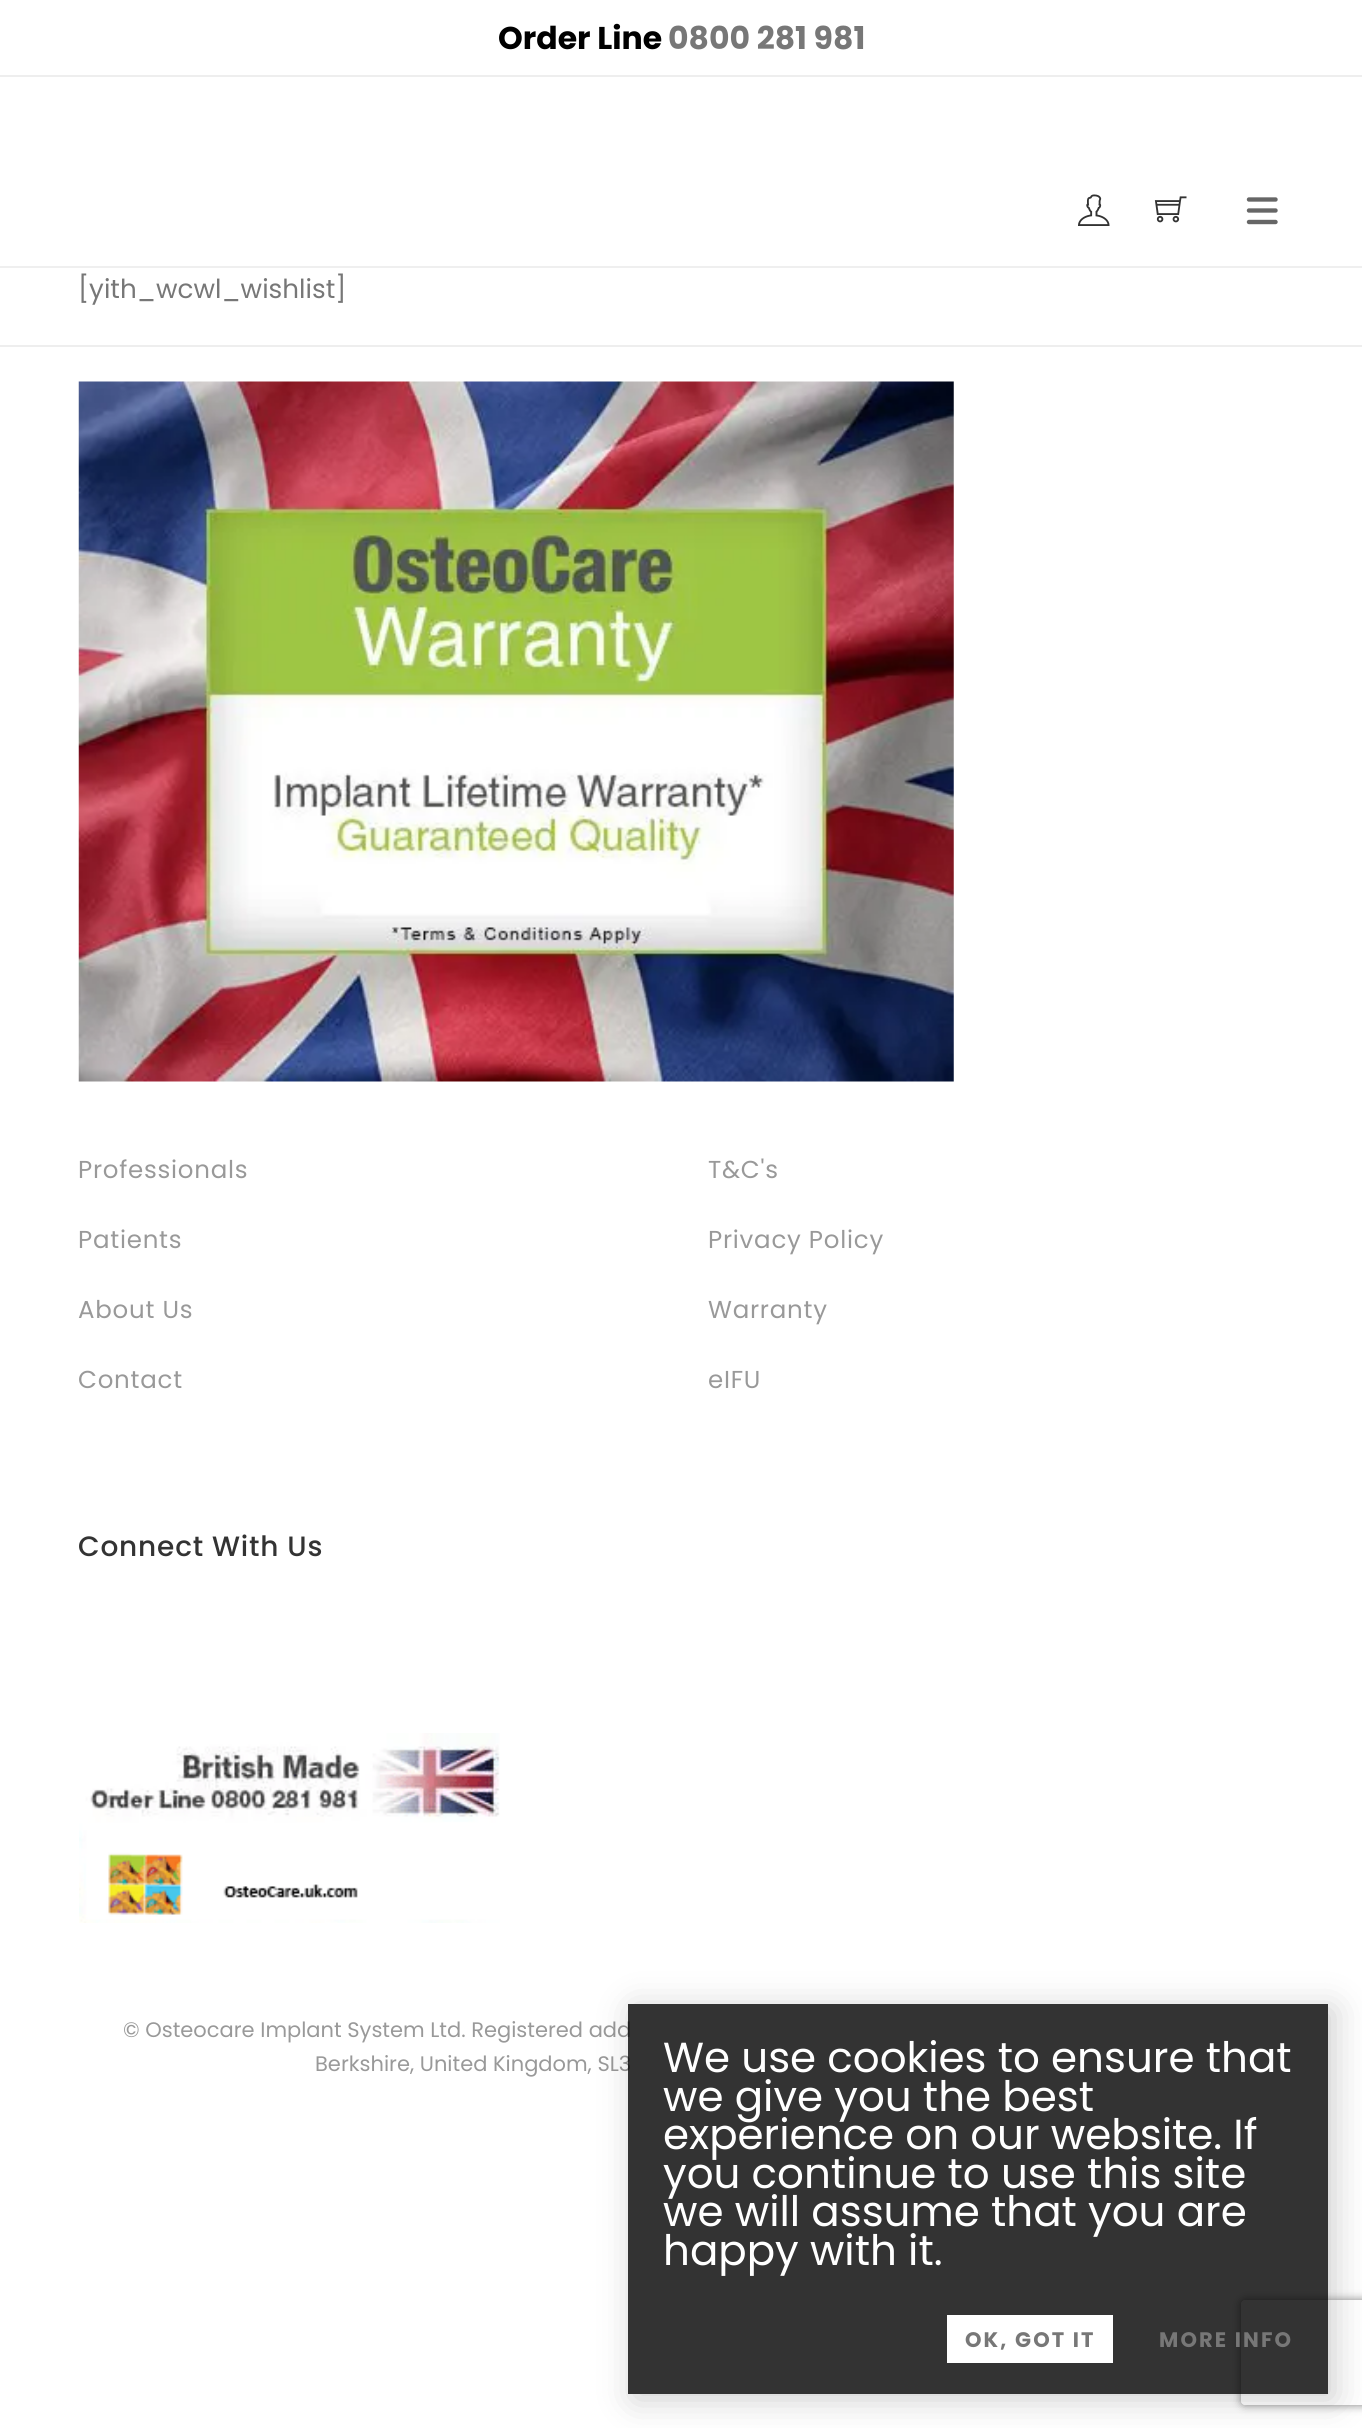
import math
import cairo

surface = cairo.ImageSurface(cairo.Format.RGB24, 1362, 2428)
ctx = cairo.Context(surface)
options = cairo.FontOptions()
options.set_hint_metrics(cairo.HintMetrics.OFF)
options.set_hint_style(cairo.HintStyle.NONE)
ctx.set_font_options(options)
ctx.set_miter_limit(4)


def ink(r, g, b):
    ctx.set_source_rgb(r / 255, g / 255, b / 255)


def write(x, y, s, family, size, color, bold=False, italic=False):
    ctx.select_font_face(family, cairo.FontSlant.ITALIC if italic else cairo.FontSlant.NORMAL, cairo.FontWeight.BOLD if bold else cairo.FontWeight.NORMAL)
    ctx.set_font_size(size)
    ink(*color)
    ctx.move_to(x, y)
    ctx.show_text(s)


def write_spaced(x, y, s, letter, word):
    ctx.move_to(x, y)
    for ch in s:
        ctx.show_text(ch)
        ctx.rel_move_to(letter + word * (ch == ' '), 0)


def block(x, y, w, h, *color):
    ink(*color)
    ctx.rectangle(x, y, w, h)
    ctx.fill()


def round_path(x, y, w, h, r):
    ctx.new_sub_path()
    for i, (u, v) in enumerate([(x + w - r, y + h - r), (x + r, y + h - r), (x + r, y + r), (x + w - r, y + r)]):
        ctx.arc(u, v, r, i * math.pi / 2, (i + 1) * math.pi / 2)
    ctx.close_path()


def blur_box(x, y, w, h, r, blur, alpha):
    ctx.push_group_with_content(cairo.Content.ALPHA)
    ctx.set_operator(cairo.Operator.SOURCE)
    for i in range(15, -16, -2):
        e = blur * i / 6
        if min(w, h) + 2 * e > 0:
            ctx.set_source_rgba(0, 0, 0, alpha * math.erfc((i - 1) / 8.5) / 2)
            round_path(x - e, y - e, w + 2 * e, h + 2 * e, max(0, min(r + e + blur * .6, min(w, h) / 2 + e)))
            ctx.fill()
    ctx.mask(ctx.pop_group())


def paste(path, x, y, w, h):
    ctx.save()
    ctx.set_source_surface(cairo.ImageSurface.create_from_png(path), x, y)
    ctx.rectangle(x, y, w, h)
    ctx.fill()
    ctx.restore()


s1 = dict(family="Poppins", size=31.5, color=(0, 0, 0), bold=True)
s2 = dict(family="Poppins", size=31.5, color=(119, 119, 119), bold=True)
s3 = dict(family="Poppins", size=26.25, color=(119, 119, 119))
s4 = dict(family="Poppins", size=21, color=(153, 153, 153))
s5 = dict(family="Poppins", size=42, color=(255, 255, 255))

ink(255, 255, 255)
ctx.paint()
block(0, 75, 1362, 2, 238, 238, 238)
write(498, 49, "Order Line", **s1)
write(668, 49, "0800 281 981", **s2)
block(0, 266, 1362, 2, 239, 239, 239)
paste("pic1.png", 1078, 194, 32, 32)
paste("pic2.png", 1154, 196, 33, 27)
ctx.new_path()
ctx.move_to(1249, 199.5)
ctx.line_to(1275.5, 199.5)
ctx.move_to(1249, 210.5)
ctx.line_to(1275.5, 210.5)
ctx.move_to(1249, 222)
ctx.line_to(1275.5, 222)
ink(102, 102, 102)
ctx.set_line_width(4.4)
ctx.set_line_cap(cairo.LineCap.ROUND)
ctx.stroke()
write(78, 298, "[yith_wcwl_wishlist]", **s3)
block(0, 345, 1362, 2, 238, 238, 238)
paste("pic3.png", 78, 381, 876, 701)
ctx.set_font_size(24.5)
ink(153, 153, 153)
write_spaced(78, 1178, "Professionals", 0.75, 0)
write_spaced(78, 1248, "Patients", 0.75, 0)
write_spaced(78, 1318, "About Us", 0.75, 0)
write_spaced(78, 1388, "Contact", 0.75, 0)
write_spaced(708, 1178, "T&C's", 0.75, 0)
write_spaced(708, 1248, "Privacy Policy", 0.75, 0)
write_spaced(708, 1318, "Warranty", 0.75, 0)
write_spaced(708, 1388, "eIFU", 0.75, 0)
ctx.select_font_face("Poppins Medium")
ctx.set_font_size(28)
ink(51, 51, 51)
write_spaced(78, 1556, "Connect With Us", 0.8, 0)
paste("pic4.png", 79, 1733, 421, 190)
write(123, 2037, "© Osteocare Implant System Ltd. Registered add", **s4)
write(315, 2071, "Berkshire, United Kingdom, SL3", **s4)
ctx.save()
ctx.set_fill_rule(cairo.FillRule.EVEN_ODD)
ctx.new_path()
ctx.move_to(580, 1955)
ctx.line_to(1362, 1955)
ctx.line_to(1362, 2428)
ctx.line_to(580, 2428)
ctx.close_path()
ctx.move_to(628, 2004)
ctx.line_to(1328, 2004)
ctx.line_to(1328, 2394)
ctx.line_to(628, 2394)
ctx.close_path()
ctx.clip()
ink(0, 0, 0)
blur_box(634, 2009, 700, 390, 0, 17.5, 0.2)
ctx.restore()
ctx.save()
ctx.set_fill_rule(cairo.FillRule.EVEN_ODD)
ctx.new_path()
ctx.move_to(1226, 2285)
ctx.line_to(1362, 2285)
ctx.line_to(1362, 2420)
ctx.line_to(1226, 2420)
ctx.close_path()
ctx.move_to(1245, 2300)
ctx.line_to(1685, 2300)
ctx.curve_to(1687, 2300, 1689, 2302, 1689, 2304)
ctx.line_to(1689, 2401)
ctx.curve_to(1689, 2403, 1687, 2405, 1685, 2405)
ctx.line_to(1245, 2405)
ctx.curve_to(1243, 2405, 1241, 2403, 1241, 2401)
ctx.line_to(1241, 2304)
ctx.curve_to(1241, 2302, 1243, 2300, 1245, 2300)
ctx.close_path()
ctx.clip()
ink(128, 128, 128)
blur_box(1241, 2300, 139, 105, 4, 4.5, 1)
ctx.restore()
ctx.set_source_rgba(0, 0, 0, 0.8)
ctx.rectangle(628, 2004, 700, 390)
ctx.fill()
write(663, 2072, "We use cookies to ensure that", **s5)
write(663, 2111, "we give you the best", **s5)
write(663, 2149, "experience on our website. If", **s5)
write(663, 2188, "you continue to use this site", **s5)
write(663, 2226, "we will assume that you are", **s5)
write(663, 2265, "happy with it.", **s5)
block(947, 2315, 166, 48, 255, 255, 255)
ctx.select_font_face("Poppins", cairo.FontSlant.NORMAL, cairo.FontWeight.BOLD)
ctx.set_font_size(21)
ink(119, 119, 119)
write_spaced(965, 2347, "OK, GOT IT", 2.1, 0)
write_spaced(1159, 2347, "MORE INFO", 2.1, 0)
surface.write_to_png("screenshot.png")
